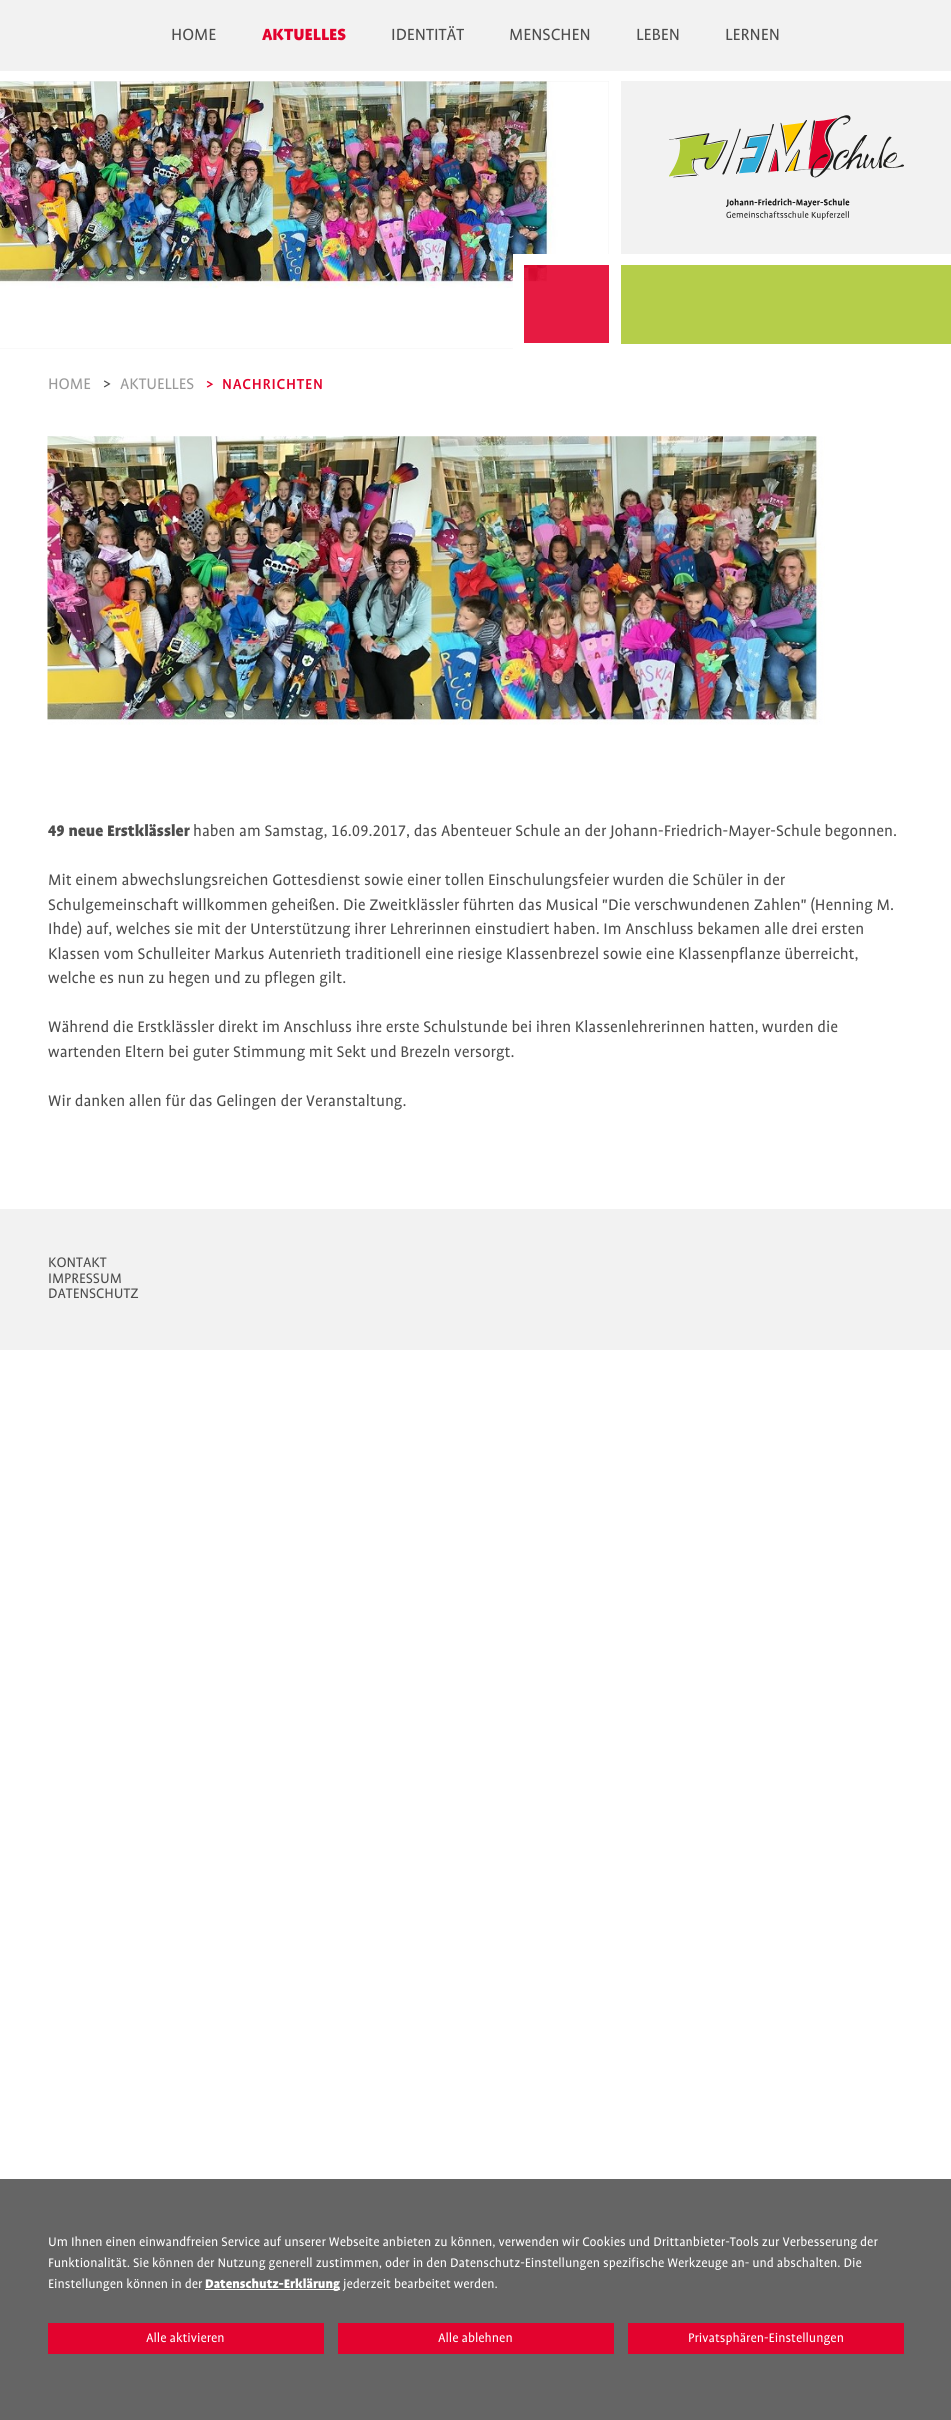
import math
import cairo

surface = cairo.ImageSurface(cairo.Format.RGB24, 951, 2420)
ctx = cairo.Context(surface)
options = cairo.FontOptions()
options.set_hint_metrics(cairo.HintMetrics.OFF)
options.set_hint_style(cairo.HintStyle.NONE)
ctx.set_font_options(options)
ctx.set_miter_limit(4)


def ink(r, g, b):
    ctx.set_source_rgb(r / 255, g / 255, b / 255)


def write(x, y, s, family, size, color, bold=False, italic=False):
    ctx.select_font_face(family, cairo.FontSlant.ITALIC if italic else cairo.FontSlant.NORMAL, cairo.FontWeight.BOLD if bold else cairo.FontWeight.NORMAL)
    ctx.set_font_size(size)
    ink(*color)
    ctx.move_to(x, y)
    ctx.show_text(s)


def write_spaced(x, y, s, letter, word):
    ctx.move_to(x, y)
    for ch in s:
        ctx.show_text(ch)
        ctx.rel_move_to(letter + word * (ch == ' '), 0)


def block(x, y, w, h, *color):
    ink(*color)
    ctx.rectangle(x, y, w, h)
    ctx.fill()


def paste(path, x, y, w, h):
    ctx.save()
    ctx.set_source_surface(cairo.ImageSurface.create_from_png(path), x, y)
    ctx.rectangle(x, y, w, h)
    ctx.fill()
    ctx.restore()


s1 = dict(family="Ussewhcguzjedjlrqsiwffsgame", size=18.5, color=(77, 77, 77))
s2 = dict(family="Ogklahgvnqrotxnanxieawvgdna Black", size=18.5, color=(227, 3, 46))
s3 = dict(family="Ussewhcguzjedjlrqsiwffsgame", size=17.5, color=(153, 153, 153))
s4 = dict(family="Ussewhcguzjedjlrqsiwffsgame", size=17.5, color=(77, 77, 77))
s5 = dict(family="Ogklahgvnqrotxnanxieawvgdna Black", size=17.5, color=(77, 77, 77))
s6 = dict(family="Ussewhcguzjedjlrqsiwffsgame", size=15.75, color=(77, 77, 77))
s7 = dict(family="Ussewhcguzjedjlrqsiwffsgame", size=14.18, color=(255, 255, 255))
s8 = dict(family="Ogklahgvnqrotxnanxieawvgdna Black", size=14.18, color=(255, 255, 255))

ink(255, 255, 255)
ctx.paint()
block(0, 0, 951, 71, 242, 242, 242)
write(171, 40, "HOME", **s1)
write(262, 40, "AKTUELLES", **s2)
write(391, 40, "IDENTITÄT", **s1)
write(509, 40, "MENSCHEN", **s1)
write(636, 40, "LEBEN", **s1)
write(725, 40, "LERNEN", **s1)
block(0, 81, 609, 268, 242, 242, 242)
paste("pic1.png", 0, 81, 609, 268)
block(621, 81, 330, 173, 242, 242, 242)
paste("pic2.png", 669, 115, 235, 105)
block(621, 265, 330, 79, 181, 206, 74)
ctx.set_source_rgba(0.89, 0.012, 0.18, 0.9)
ctx.rectangle(524, 265, 85, 78)
ctx.fill()
ctx.save()
ctx.rectangle(0, 81, 951, 268)
ctx.clip()
ctx.rectangle(518.5, 259.5, 96, 89)
ink(255, 255, 255)
ctx.set_line_width(11)
ctx.stroke()
ctx.restore()
write(48, 389, "HOME", **s3)
write(103, 389, ">", **s4)
write(120, 389, "AKTUELLES", **s3)
ctx.select_font_face("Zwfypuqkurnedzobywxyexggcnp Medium")
ctx.set_font_size(16.5)
ink(227, 3, 46)
write_spaced(206, 389, ">", 0.75, 0)
write_spaced(222, 389, "NACHRICHTEN", 0.75, 0)
paste("pic3.png", 47, 436, 778, 289)
write(48, 836, "49 neue Erstklässler", **s5)
write(193, 836, "haben am Samstag, 16.09.2017, das Abenteuer Schule an der Johann-Friedrich-Mayer-Schule begonnen.", **s4)
write(48, 885, "Mit einem abwechslungsreichen Gottesdienst sowie einer tollen Einschulungsfeier wurden die Schüler in der", **s4)
write(48, 910, "Schulgemeinschaft willkommen geheißen. Die Zweitklässler führten das Musical \"Die verschwundenen Zahlen\" (Henning M.", **s4)
write(48, 934, "Ihde) auf, welches sie mit der Unterstützung ihrer Lehrerinnen einstudiert haben. Im Anschluss bekamen alle drei ersten", **s4)
write(48, 959, "Klassen vom Schulleiter Markus Autenrieth traditionell eine riesige Klassenbrezel sowie eine Klassenpflanze überreicht,", **s4)
write(48, 983, "welche es nun zu hegen und zu pflegen gilt.", **s4)
write(48, 1032, "Während die Erstklässler direkt im Anschluss ihre erste Schulstunde bei ihren Klassenlehrerinnen hatten, wurden die", **s4)
write(48, 1057, "wartenden Eltern bei guter Stimmung mit Sekt und Brezeln versorgt.", **s4)
write(48, 1106, "Wir danken allen für das Gelingen der Veranstaltung.", **s4)
block(0, 1209, 951, 141, 242, 242, 242)
write(48, 1267, "KONTAKT", **s6)
write(48, 1283, "IMPRESSUM", **s6)
write(48, 1298, "DATENSCHUTZ", **s6)
block(0, 2179, 951, 241, 101, 101, 101)
write(48, 2246, "Um Ihnen einen einwandfreien Service auf unserer Webseite anbieten zu können, verwenden wir Cookies und Drittanbieter-Tools zur Verbesserung der", **s7)
write(48, 2267, "Funktionalität. Sie können der Nutzung generell zustimmen, oder in den Datenschutz-Einstellungen spezifische Werkzeuge an- und abschalten. Die", **s7)
write(48, 2288, "Einstellungen können in der", **s7)
block(205, 2289, 135, 1, 255, 255, 255)
write(205, 2288, "Datenschutz-Erklärung", **s8)
write(343, 2288, "jederzeit bearbeitet werden.", **s7)
block(48, 2323, 276, 31, 227, 3, 46)
write(146, 2342, "Alle aktivieren", **s7)
block(338, 2323, 276, 31, 227, 3, 46)
write(438, 2342, "Alle ablehnen", **s7)
block(628, 2323, 276, 31, 227, 3, 46)
write(688, 2342, "Privatsphären-Einstellungen", **s7)
surface.write_to_png("screenshot.png")
